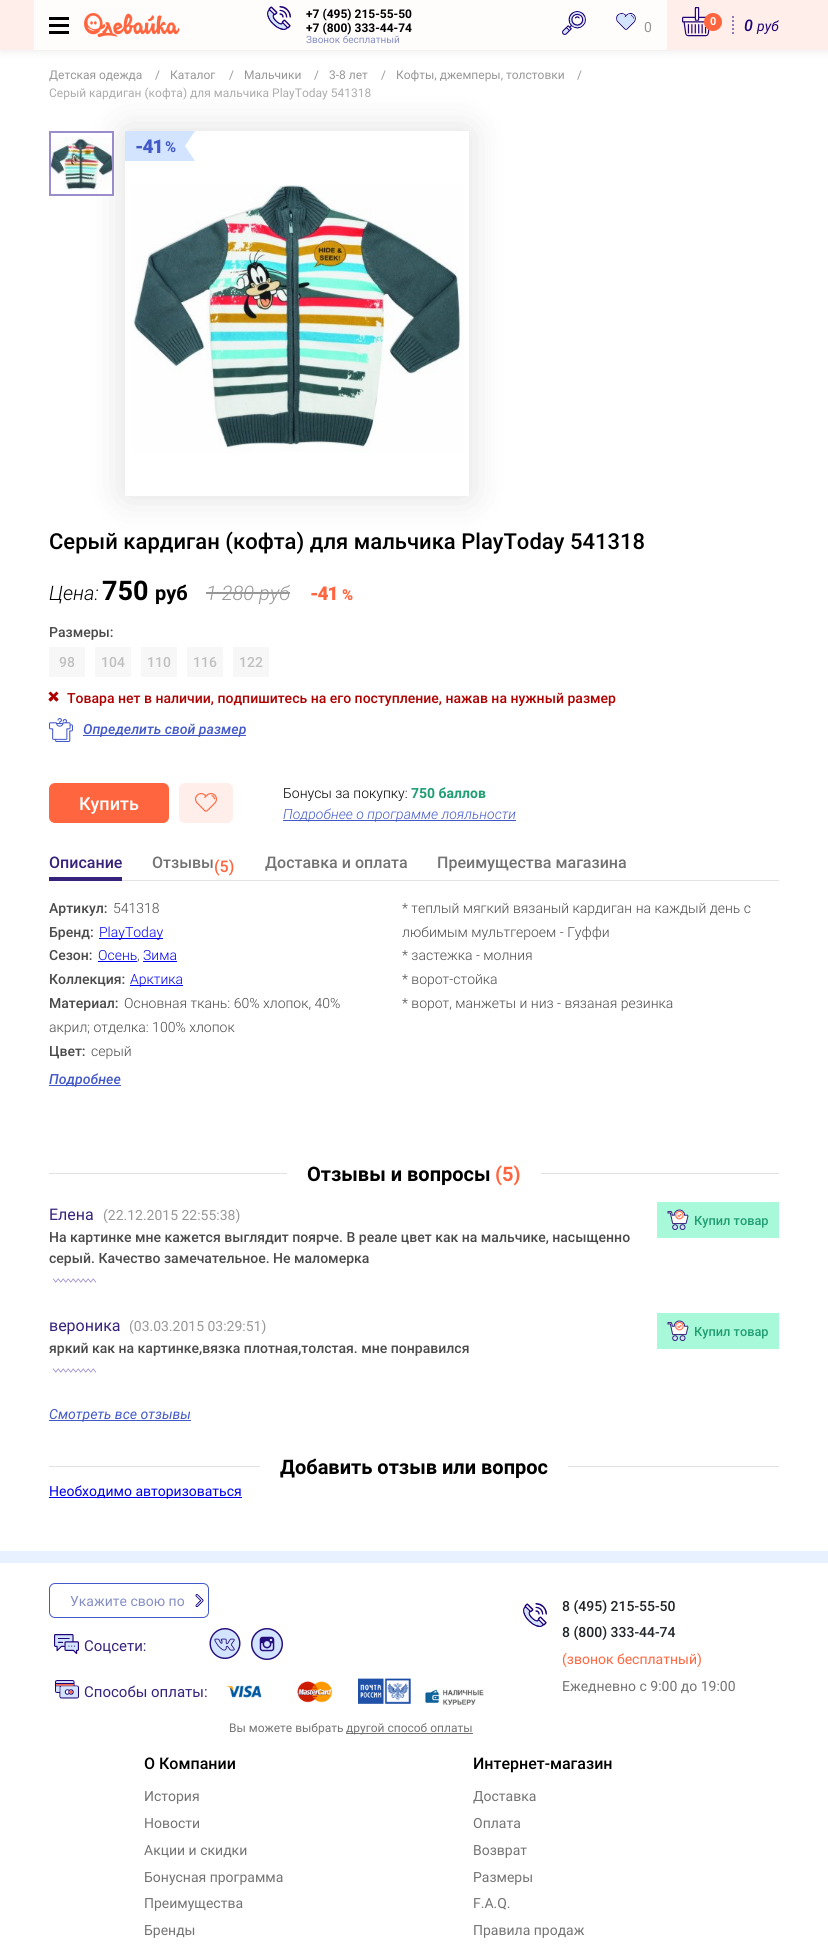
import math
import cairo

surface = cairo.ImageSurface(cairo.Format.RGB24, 828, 1953)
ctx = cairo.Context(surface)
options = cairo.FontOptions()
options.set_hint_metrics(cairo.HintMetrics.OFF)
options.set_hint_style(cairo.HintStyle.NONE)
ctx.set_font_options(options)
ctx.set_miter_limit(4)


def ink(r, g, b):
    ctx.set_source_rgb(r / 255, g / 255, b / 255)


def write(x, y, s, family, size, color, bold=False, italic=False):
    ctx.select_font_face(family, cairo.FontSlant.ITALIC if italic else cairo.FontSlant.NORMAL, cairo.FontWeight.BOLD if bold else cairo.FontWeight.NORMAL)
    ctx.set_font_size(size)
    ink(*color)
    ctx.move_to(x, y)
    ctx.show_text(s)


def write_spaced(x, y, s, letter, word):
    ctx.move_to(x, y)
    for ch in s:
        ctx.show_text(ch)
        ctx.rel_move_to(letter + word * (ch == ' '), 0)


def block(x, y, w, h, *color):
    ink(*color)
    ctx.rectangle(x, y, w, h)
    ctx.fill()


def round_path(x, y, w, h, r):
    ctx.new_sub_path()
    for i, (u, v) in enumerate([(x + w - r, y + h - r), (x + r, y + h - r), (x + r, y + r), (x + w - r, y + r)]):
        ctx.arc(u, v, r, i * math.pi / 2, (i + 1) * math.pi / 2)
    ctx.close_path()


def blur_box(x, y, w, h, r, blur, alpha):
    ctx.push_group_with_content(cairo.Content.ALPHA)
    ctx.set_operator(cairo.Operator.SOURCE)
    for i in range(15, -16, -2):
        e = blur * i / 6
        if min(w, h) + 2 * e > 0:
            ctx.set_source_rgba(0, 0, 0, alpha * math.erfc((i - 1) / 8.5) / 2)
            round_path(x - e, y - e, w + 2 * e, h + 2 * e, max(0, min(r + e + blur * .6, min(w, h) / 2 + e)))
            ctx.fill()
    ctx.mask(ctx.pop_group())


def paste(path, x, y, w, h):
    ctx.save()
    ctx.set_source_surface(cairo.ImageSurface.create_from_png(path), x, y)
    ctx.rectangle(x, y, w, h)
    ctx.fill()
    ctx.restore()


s1 = dict(family="Roboto", size=12, color=(0, 0, 0), bold=True)
s2 = dict(family="Roboto", size=10, color=(133, 143, 196))
s3 = dict(family="Roboto", size=14, color=(151, 151, 151))
s4 = dict(family="Roboto", size=11, color=(255, 255, 255), bold=True)
s5 = dict(family="Roboto Medium", size=16, color=(30, 4, 120), italic=True)
s6 = dict(family="Roboto", size=14, color=(30, 4, 120), italic=True)
s7 = dict(family="Roboto", size=12, color=(151, 151, 151))
s8 = dict(family="Roboto", size=12, color=(172, 172, 172))
s9 = dict(family="Roboto Medium", size=22, color=(0, 0, 0))
s10 = dict(family="Roboto Light", size=20, color=(0, 0, 0), italic=True)
s11 = dict(family="Roboto", size=27, color=(0, 0, 0), bold=True)
s12 = dict(family="Roboto", size=20, color=(0, 0, 0), bold=True)
s13 = dict(family="Roboto Light", size=20, color=(151, 151, 151), italic=True)
s14 = dict(family="Roboto Medium", size=14, color=(74, 74, 74))
s15 = dict(family="Roboto Medium", size=14, color=(192, 192, 192))
s16 = dict(family="Roboto Medium", size=14, color=(175, 0, 0))
s17 = dict(family="Roboto Medium", size=14, color=(67, 89, 201), italic=True)
s18 = dict(family="Roboto Medium", size=18, color=(255, 255, 255))
s19 = dict(family="Roboto Light", size=14, color=(0, 0, 0))
s20 = dict(family="Roboto", size=14, color=(32, 158, 114), bold=True)
s21 = dict(family="Roboto Light", size=14, color=(67, 89, 201), italic=True)
s22 = dict(family="Roboto Medium", size=16, color=(55, 34, 124))
s23 = dict(family="Roboto Medium", size=16, color=(115, 115, 115))
s24 = dict(family="Roboto Medium", size=16, color=(255, 101, 62))
s25 = dict(family="Roboto Light", size=14, color=(74, 74, 74))
s26 = dict(family="Roboto Light", size=14, color=(0, 0, 238))
s27 = dict(family="Roboto", size=20, color=(255, 101, 62), bold=True)
s28 = dict(family="Roboto", size=16, color=(55, 34, 124))
s29 = dict(family="Roboto Medium", size=12.75, color=(32, 158, 114))
s30 = dict(family="Roboto", size=14, color=(67, 89, 201), italic=True)
s31 = dict(family="Roboto", size=14, color=(0, 0, 238))
s32 = dict(family="Roboto", size=14, color=(133, 143, 196))
s33 = dict(family="Roboto", size=15, color=(55, 34, 124))
s34 = dict(family="Roboto", size=12, color=(115, 115, 115))
s35 = dict(family="Roboto Medium", size=14, color=(33, 37, 41))
s36 = dict(family="Roboto", size=14, color=(255, 101, 62))
s37 = dict(family="Roboto", size=14, color=(115, 115, 115))
s38 = dict(family="Roboto Medium", size=16, color=(0, 0, 0))

ink(255, 255, 255)
ctx.paint()
ink(0, 0, 0)
blur_box(0, 0, 828, 50, 0, 5, 0.1)
block(0, 0, 828, 50, 255, 238, 233)
block(34, 0, 633, 50, 255, 252, 252)
block(49, 17, 20, 3, 0, 0, 0)
block(49, 31, 20, 3, 0, 0, 0)
block(49, 24, 20, 3, 0, 0, 0)
paste("pic1.png", 84, 13, 96, 24)
paste("pic2.png", 267, 6, 24, 24)
write(306, 18, "+7 (495) 215-55-50", **s1)
write(306, 32, "+7 (800) 333-44-74", **s1)
write(306, 43, "Звонок бесплатный", **s2)
paste("pic3.png", 562, 11, 24, 24)
paste("pic4.png", 616, 13, 20, 17)
write(644, 32, "0", **s3)
paste("pic5.png", 682, 7, 28, 30)
ink(255, 101, 62)
ctx.arc(713, 22, 9, 0, 2 * math.pi)
ctx.fill()
write(710, 25, "0", **s4)
ctx.new_path()
ctx.move_to(733, 16)
ctx.line_to(733, 35)
ink(143, 121, 177)
ctx.set_dash([2, 2])
ctx.stroke()
write(744, 31, "0", **s5)
write(757, 31, "руб", **s6)
write(49, 79, "Детская одежда", **s7)
write(155, 79, "/", **s7)
write(170, 79, "Каталог", **s7)
write(229, 79, "/", **s7)
write(244, 79, "Мальчики", **s7)
write(314, 79, "/", **s7)
write(329, 79, "3-8 лет", **s7)
write(381, 79, "/", **s7)
write(396, 79, "Кофты, джемперы, толстовки", **s7)
write(577, 79, "/", **s7)
write(49, 97, "Серый кардиган (кофта) для мальчика PlayToday 541318", **s8)
ctx.save()
ctx.set_fill_rule(cairo.FillRule.EVEN_ODD)
ctx.new_path()
ctx.move_to(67, 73)
ctx.line_to(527, 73)
ctx.line_to(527, 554)
ctx.line_to(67, 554)
ctx.close_path()
ctx.move_to(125, 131)
ctx.line_to(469, 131)
ctx.line_to(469, 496)
ctx.line_to(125, 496)
ctx.close_path()
ctx.clip()
ink(0, 0, 0)
blur_box(125, 131, 344, 365, 0, 19, 0.13)
ctx.restore()
block(98, 133, 14, 61, 255, 255, 255)
paste("pic6.png", 51, 137, 61, 53)
ctx.rectangle(50, 132, 63, 63)
ink(155, 140, 204)
ctx.set_dash([])
ctx.stroke()
ink(210, 228, 255)
ctx.new_path()
ctx.move_to(125, 131)
ctx.line_to(125, 161)
ctx.line_to(195, 161)
ctx.line_to(185, 146)
ctx.line_to(195, 131)
ctx.close_path()
ctx.fill()
ctx.select_font_face("Roboto Black")
ctx.set_font_size(19)
ink(67, 89, 201)
write_spaced(135, 153, "-41", -1, 0)
ctx.select_font_face("Roboto", cairo.FontSlant.NORMAL, cairo.FontWeight.BOLD)
ctx.set_font_size(15)
write_spaced(165, 152, "%", -1, 0)
paste("pic7.png", 131, 185, 333, 268)
write(49, 549, "Серый кардиган (кофта) для мальчика PlayToday 541318", **s9)
write(49, 600, "Цена:", **s10)
write(102, 600, "750", **s11)
write(155, 600, "руб", **s12)
write(206, 600, "1 280 руб", **s13)
block(206, 592, 84, 2, 151, 151, 151)
ctx.select_font_face("Roboto Black")
ctx.set_font_size(19)
ink(255, 101, 62)
write_spaced(310, 600, "-41", -1, 0)
ctx.set_font_size(15)
write_spaced(342, 600, "%", -1, 0)
write(49, 637, "Размеры:", **s14)
block(49, 647, 36, 30, 247, 247, 247)
write(59, 667, "98", **s15)
block(95, 647, 36, 30, 247, 247, 247)
write(101, 667, "104", **s15)
block(141, 647, 36, 30, 247, 247, 247)
write(147, 667, "110", **s15)
block(187, 647, 36, 30, 247, 247, 247)
write(193, 667, "116", **s15)
block(233, 647, 36, 30, 247, 247, 247)
write(239, 667, "122", **s15)
ink(175, 0, 0)
ctx.new_path()
ctx.move_to(56.5, 691.5)
ctx.line_to(58.5, 693.5)
ctx.line_to(50.5, 701.5)
ctx.line_to(48.5, 699.5)
ctx.close_path()
ctx.fill()
ctx.new_path()
ctx.move_to(50.5, 697)
ctx.line_to(53, 699.5)
ctx.line_to(50.5, 701.5)
ctx.line_to(48.5, 699.5)
ctx.close_path()
ctx.fill()
ctx.new_path()
ctx.move_to(48.5, 693.5)
ctx.line_to(50.5, 691.5)
ctx.line_to(58.5, 699.5)
ctx.line_to(56.5, 701.5)
ctx.close_path()
ctx.fill()
ctx.new_path()
ctx.move_to(54, 699.5)
ctx.line_to(56.5, 697)
ctx.line_to(58.5, 699.5)
ctx.line_to(56.5, 701.5)
ctx.close_path()
ctx.fill()
write(67, 703, "Товара нет в наличии, подпишитесь на его поступление, нажав на нужный размер", **s16)
paste("pic8.png", 49, 718, 24, 24)
block(83, 735, 163, 1, 67, 89, 201)
write(83, 734, "Определить свой размер", **s17)
ink(255, 101, 62)
round_path(49, 783, 120, 40, 6)
ctx.fill()
write(79, 810, "Купить", **s18)
ink(255, 238, 233)
round_path(179, 783, 54, 40, 6)
ctx.fill()
paste("pic9.png", 195, 793, 22, 19)
write(283, 798, "Бонусы за покупку:", **s19)
write(411, 798, "750 баллов", **s20)
block(283, 820, 233, 1, 67, 89, 201)
write(283, 819, "Подробнее о программе лояльности", **s21)
block(122, 880, 657, 1, 226, 226, 226)
write(49, 868, "Описание", **s22)
block(49, 877, 73, 4, 55, 34, 124)
write(152, 868, "Отзывы", **s23)
write(214, 872, "(5)", **s24)
write(265, 868, "Доставка и оплата", **s23)
write(437, 868, "Преимущества магазина", **s23)
write(49, 913, "Артикул:", **s14)
write(113, 913, "541318", **s25)
write(49, 937, "Бренд:", **s14)
block(99, 938, 64, 1, 0, 0, 238)
write(99, 937, "PlayToday", **s26)
write(49, 960, "Сезон:", **s14)
write(98, 960, "Осень", **s26)
block(98, 961, 39, 1, 0, 0, 238)
write(137, 960, ",", **s25)
write(143, 960, "Зима", **s26)
block(143, 961, 34, 1, 0, 0, 238)
write(49, 984, "Коллекция:", **s14)
block(130, 985, 53, 1, 0, 0, 238)
write(130, 984, "Арктика", **s26)
write(49, 1008, "Материал:", **s14)
write(124, 1008, "Основная ткань: 60% хлопок, 40%", **s25)
write(49, 1032, "акрил; отделка: 100% хлопок", **s25)
write(49, 1056, "Цвет:", **s14)
write(91, 1056, "серый", **s25)
block(49, 1085, 72, 1, 67, 89, 201)
write(49, 1084, "Подробнее", **s17)
write(402, 913, "* теплый мягкий вязаный кардиган на каждый день с", **s25)
write(402, 937, "любимым мультгероем - Гуффи", **s25)
write(402, 960, "* застежка - молния", **s25)
write(402, 984, "* ворот-стойка", **s25)
write(402, 1008, "* ворот, манжеты и низ - вязаная резинка", **s25)
block(49, 1173, 238, 1, 226, 226, 226)
write(307, 1181, "Отзывы и вопросы", **s12)
write(495, 1181, "(5)", **s27)
block(541, 1173, 238, 1, 226, 226, 226)
write(49, 1220, "Елена", **s28)
block(657, 1202, 122, 36, 168, 249, 217)
paste("pic10.png", 667, 1209, 22, 21)
write(694, 1225, "Купил товар", **s29)
write(103, 1220, "(22.12.2015 22:55:38)", **s3)
write(49, 1242, "На картинке мне кажется выглядит поярче. В реале цвет как на мальчике, насыщенно", **s14)
write(49, 1263, "серый. Качество замечательное. Не маломерка", **s14)
paste("pic11.png", 52, 1278, 45, 5)
write(129, 1331, "(03.03.2015 03:29:51)", **s3)
write(49, 1331, "вероника", **s28)
block(657, 1313, 122, 36, 168, 249, 217)
paste("pic10.png", 667, 1320, 22, 21)
write(694, 1336, "Купил товар", **s29)
write(49, 1353, "яркий как на картинке,вязка плотная,толстая. мне понравился", **s14)
paste("pic11.png", 52, 1368, 45, 5)
block(49, 1420, 142, 1, 67, 89, 201)
write(49, 1419, "Смотреть все отзывы", **s30)
block(49, 1466, 211, 1, 226, 226, 226)
write(280, 1474, "Добавить отзыв или вопрос", **s12)
block(568, 1466, 211, 1, 226, 226, 226)
block(49, 1497, 193, 1, 0, 0, 238)
write(49, 1496, "Необходимо авторизоваться", **s31)
block(0, 1551, 828, 12, 232, 241, 255)
round_path(49.5, 1583.5, 159, 34, 5.5)
ink(67, 89, 201)
ctx.set_line_width(1)
ctx.stroke()
write(70, 1606, "Укажите свою по", **s32)
paste("pic12.png", 195, 1594, 9, 13)
paste("pic13.png", 54, 1634, 25, 20)
write(84, 1651, "Соцсети:", **s33)
paste("pic14.png", 209, 1628, 32, 31)
paste("pic15.png", 251, 1628, 32, 32)
paste("pic16.png", 55, 1680, 24, 19)
write(84, 1697, "Способы оплаты:", **s33)
paste("pic17.png", 226, 1685, 36, 13)
paste("pic18.png", 297, 1681, 36, 22)
paste("pic19.png", 358, 1678, 53, 26)
paste("pic20.png", 425, 1689, 59, 16)
write(229, 1732, "Вы можете выбрать", **s34)
block(346, 1733, 127, 1, 115, 115, 115)
write(346, 1732, "другой способ оплаты", **s34)
paste("pic21.png", 523, 1603, 24, 24)
write(562, 1611, "8 (495) 215-55-50", **s35)
write(562, 1637, "8 (800) 333-44-74", **s35)
write(562, 1664, "(звонок бесплатный)", **s36)
write(562, 1691, "Ежедневно с 9:00 до 19:00", **s37)
write(144, 1769, "О Компании", **s38)
write(144, 1801, "История", **s37)
write(144, 1828, "Новости", **s37)
write(144, 1855, "Акции и скидки", **s37)
write(144, 1882, "Бонусная программа", **s37)
write(144, 1908, "Преимущества", **s37)
write(144, 1935, "Бренды", **s37)
write(473, 1769, "Интернет-магазин", **s38)
write(473, 1801, "Доставка", **s37)
write(473, 1828, "Оплата", **s37)
write(473, 1855, "Возврат", **s37)
write(473, 1882, "Размеры", **s37)
write(473, 1908, "F.A.Q.", **s37)
write(473, 1935, "Правила продаж", **s37)
surface.write_to_png("screenshot.png")
